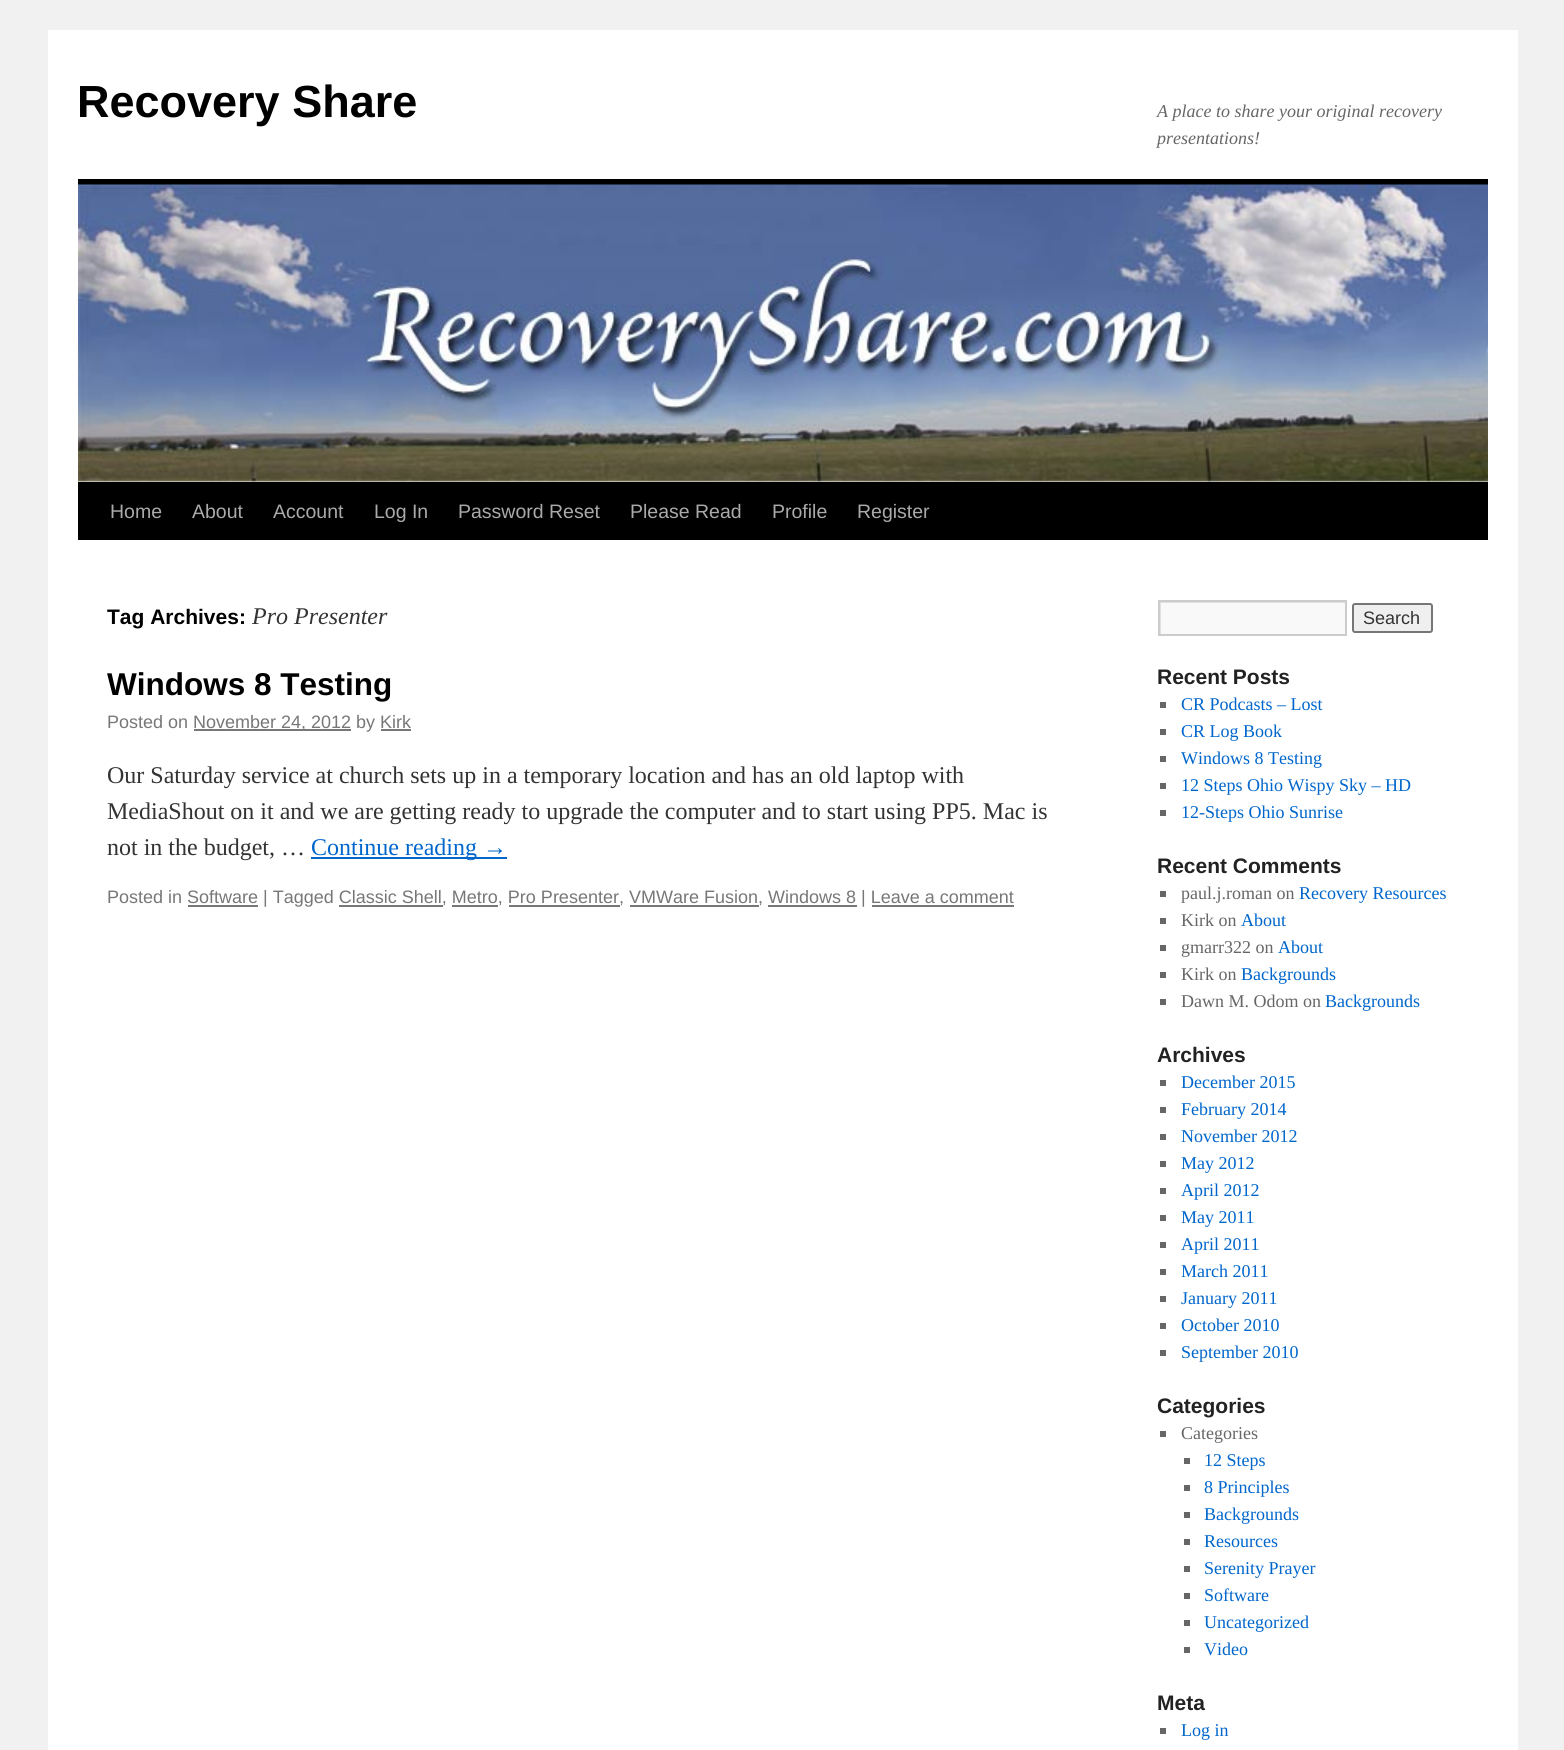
import math
import cairo

surface = cairo.ImageSurface(cairo.Format.RGB24, 1564, 1750)
ctx = cairo.Context(surface)
options = cairo.FontOptions()
options.set_hint_metrics(cairo.HintMetrics.OFF)
options.set_hint_style(cairo.HintStyle.NONE)
ctx.set_font_options(options)
ctx.set_miter_limit(4)


def ink(r, g, b):
    ctx.set_source_rgb(r / 255, g / 255, b / 255)


def write(x, y, s, family, size, color, bold=False, italic=False):
    ctx.select_font_face(family, cairo.FontSlant.ITALIC if italic else cairo.FontSlant.NORMAL, cairo.FontWeight.BOLD if bold else cairo.FontWeight.NORMAL)
    ctx.set_font_size(size)
    ink(*color)
    ctx.move_to(x, y)
    ctx.show_text(s)


def block(x, y, w, h, *color):
    ink(*color)
    ctx.rectangle(x, y, w, h)
    ctx.fill()


def round_path(x, y, w, h, r):
    ctx.new_sub_path()
    for i, (u, v) in enumerate([(x + w - r, y + h - r), (x + r, y + h - r), (x + r, y + r), (x + w - r, y + r)]):
        ctx.arc(u, v, r, i * math.pi / 2, (i + 1) * math.pi / 2)
    ctx.close_path()


def paste(path, x, y, w, h):
    ctx.save()
    ctx.set_source_surface(cairo.ImageSurface.create_from_png(path), x, y)
    ctx.rectangle(x, y, w, h)
    ctx.fill()
    ctx.restore()


s1 = dict(family="Liberation Sans", size=45, color=(0, 0, 0), bold=True)
s2 = dict(family="Liberation Serif", size=18, color=(102, 102, 102), italic=True)
s3 = dict(family="Liberation Sans", size=19.5, color=(170, 170, 170))
s4 = dict(family="Liberation Sans", size=21, color=(0, 0, 0), bold=True)
s5 = dict(family="Liberation Serif", size=24, color=(51, 51, 51), italic=True)
s6 = dict(family="Liberation Sans", size=31.5, color=(0, 0, 0), bold=True)
s7 = dict(family="Liberation Sans", size=18, color=(119, 119, 119))
s8 = dict(family="Liberation Serif", size=24, color=(51, 51, 51))
s9 = dict(family="Liberation Serif", size=24, color=(0, 102, 204))
s10 = dict(family="Liberation Sans", size=18, color=(51, 51, 51))
s11 = dict(family="Liberation Sans", size=21, color=(34, 34, 34), bold=True)
s12 = dict(family="Liberation Serif", size=18, color=(0, 102, 204))
s13 = dict(family="Liberation Serif", size=18, color=(102, 102, 102))

ink(241, 241, 241)
ctx.paint()
block(48, 30, 1470, 1720, 255, 255, 255)
write(77, 117, "Recovery Share", **s1)
write(1157, 117, "A place to share your original recovery", **s2)
write(1157, 144, "presentations!", **s2)
block(78, 179, 1410, 6, 0, 0, 0)
block(78, 482, 1410, 58, 0, 0, 0)
paste("pic1.png", 78, 184, 1410, 298)
write(110, 518, "Home", **s3)
write(192, 518, "About", **s3)
write(273, 518, "Account", **s3)
write(374, 518, "Log In", **s3)
write(458, 518, "Password Reset", **s3)
write(630, 518, "Please Read", **s3)
write(772, 518, "Profile", **s3)
write(857, 518, "Register", **s3)
write(107, 624, "Tag Archives:", **s4)
write(252, 624, "Pro Presenter", **s5)
write(107, 695, "Windows 8 Testing", **s6)
write(107, 728, "Posted on", **s7)
block(194, 729, 157, 2, 119, 119, 119)
write(193, 728, "November 24, 2012 by Kirk", **s7)
block(381, 729, 30, 2, 119, 119, 119)
write(107, 783, "Our Saturday service at church sets up in a temporary location and has an old laptop with", **s8)
write(107, 819, "MediaShout on it and we are getting ready to upgrade the computer and to start using PP5. Mac is", **s8)
write(107, 855, "not in the budget, …", **s8)
block(311, 857, 196, 2, 0, 102, 204)
write(311, 855, "Continue reading →", **s9)
write(107, 903, "Posted in Software | Tagged Classic Shell, Metro, Pro Presenter, VMWare Fusion, Windows 8 | Leave a comment", **s7)
block(188, 905, 70, 2, 119, 119, 119)
block(339, 905, 104, 2, 119, 119, 119)
block(452, 905, 46, 2, 119, 119, 119)
block(509, 905, 111, 2, 119, 119, 119)
block(630, 905, 129, 2, 119, 119, 119)
block(768, 905, 89, 2, 119, 119, 119)
block(872, 905, 142, 2, 119, 119, 119)
block(1161, 603, 184, 31, 249, 249, 249)
ctx.save()
ctx.rectangle(1160, 602, 186, 33)
ctx.clip()
ink(224, 224, 224)
ctx.set_fill_rule(cairo.FillRule.EVEN_ODD)
ctx.new_path()
ctx.move_to(1011, 453)
ctx.line_to(1494, 453)
ctx.line_to(1494, 783)
ctx.line_to(1011, 783)
ctx.close_path()
ctx.move_to(1161, 603)
ctx.line_to(1347, 603)
ctx.line_to(1347, 636)
ctx.line_to(1161, 636)
ctx.close_path()
ctx.fill()
ctx.restore()
ctx.rectangle(1159, 601, 187, 34)
ink(204, 204, 204)
ctx.stroke()
ink(239, 239, 239)
round_path(1353, 604, 79, 28, 2)
ctx.fill_preserve()
ink(118, 118, 118)
ctx.stroke()
write(1363, 624, "Search", **s10)
write(1157, 684, "Recent Posts", **s11)
block(1160, 702, 6, 6, 102, 102, 102)
write(1181, 710, "CR Podcasts – Lost", **s12)
block(1160, 729, 6, 6, 102, 102, 102)
write(1181, 737, "CR Log Book", **s12)
block(1160, 756, 6, 6, 102, 102, 102)
write(1181, 764, "Windows 8 Testing", **s12)
block(1160, 783, 6, 6, 102, 102, 102)
write(1181, 791, "12 Steps Ohio Wispy Sky – HD", **s12)
block(1160, 810, 6, 6, 102, 102, 102)
write(1181, 818, "12-Steps Ohio Sunrise", **s12)
write(1157, 873, "Recent Comments", **s11)
block(1160, 891, 6, 6, 102, 102, 102)
write(1181, 899, "paul.j.roman on", **s13)
write(1299, 899, "Recovery Resources", **s12)
block(1160, 918, 6, 6, 102, 102, 102)
write(1181, 926, "Kirk on", **s13)
write(1241, 926, "About", **s12)
block(1160, 945, 6, 6, 102, 102, 102)
write(1181, 953, "gmarr322 on", **s13)
write(1278, 953, "About", **s12)
block(1160, 972, 6, 6, 102, 102, 102)
write(1181, 980, "Kirk on", **s13)
write(1241, 980, "Backgrounds", **s12)
block(1160, 999, 6, 6, 102, 102, 102)
write(1181, 1007, "Dawn M. Odom on", **s13)
write(1325, 1007, "Backgrounds", **s12)
write(1157, 1062, "Archives", **s11)
block(1160, 1080, 6, 6, 102, 102, 102)
write(1181, 1088, "December 2015", **s12)
block(1160, 1107, 6, 6, 102, 102, 102)
write(1181, 1115, "February 2014", **s12)
block(1160, 1134, 6, 6, 102, 102, 102)
write(1181, 1142, "November 2012", **s12)
block(1160, 1161, 6, 6, 102, 102, 102)
write(1181, 1169, "May 2012", **s12)
block(1160, 1188, 6, 6, 102, 102, 102)
write(1181, 1196, "April 2012", **s12)
block(1160, 1215, 6, 6, 102, 102, 102)
write(1181, 1223, "May 2011", **s12)
block(1160, 1242, 6, 6, 102, 102, 102)
write(1181, 1250, "April 2011", **s12)
block(1160, 1269, 6, 6, 102, 102, 102)
write(1181, 1277, "March 2011", **s12)
block(1160, 1296, 6, 6, 102, 102, 102)
write(1181, 1304, "January 2011", **s12)
block(1160, 1323, 6, 6, 102, 102, 102)
write(1181, 1331, "October 2010", **s12)
block(1160, 1350, 6, 6, 102, 102, 102)
write(1181, 1358, "September 2010", **s12)
write(1157, 1413, "Categories", **s11)
block(1160, 1431, 6, 6, 102, 102, 102)
write(1181, 1439, "Categories", **s13)
block(1184, 1458, 6, 6, 102, 102, 102)
write(1204, 1466, "12 Steps", **s12)
block(1184, 1485, 6, 6, 102, 102, 102)
write(1204, 1493, "8 Principles", **s12)
block(1184, 1512, 6, 6, 102, 102, 102)
write(1204, 1520, "Backgrounds", **s12)
block(1184, 1539, 6, 6, 102, 102, 102)
write(1204, 1547, "Resources", **s12)
block(1184, 1566, 6, 6, 102, 102, 102)
write(1204, 1574, "Serenity Prayer", **s12)
block(1184, 1593, 6, 6, 102, 102, 102)
write(1204, 1601, "Software", **s12)
block(1184, 1620, 6, 6, 102, 102, 102)
write(1204, 1628, "Uncategorized", **s12)
block(1184, 1647, 6, 6, 102, 102, 102)
write(1204, 1655, "Video", **s12)
write(1157, 1710, "Meta", **s11)
block(1160, 1728, 6, 6, 102, 102, 102)
write(1181, 1736, "Log in", **s12)
surface.write_to_png("screenshot.png")
